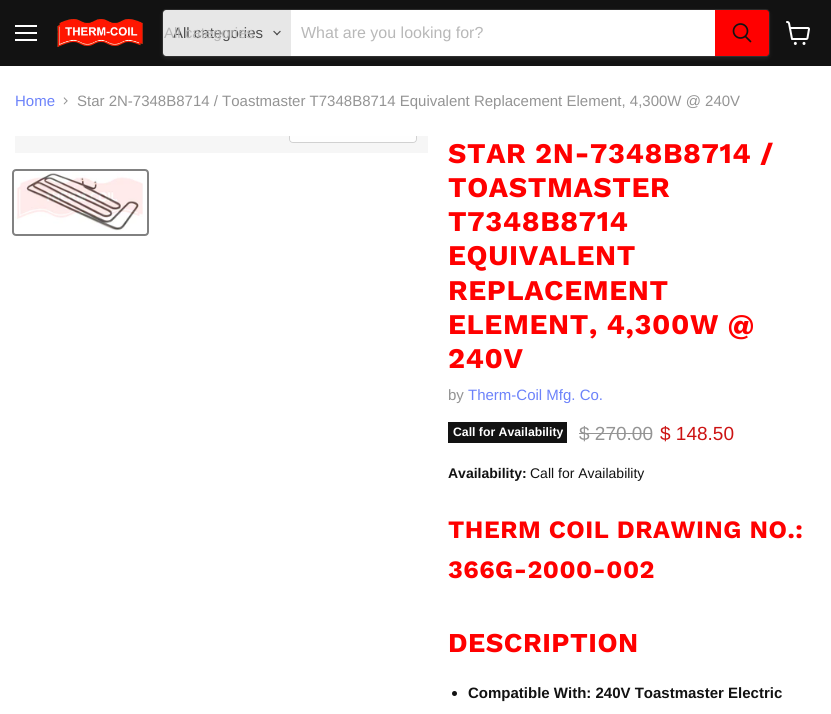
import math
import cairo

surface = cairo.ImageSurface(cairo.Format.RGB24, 831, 714)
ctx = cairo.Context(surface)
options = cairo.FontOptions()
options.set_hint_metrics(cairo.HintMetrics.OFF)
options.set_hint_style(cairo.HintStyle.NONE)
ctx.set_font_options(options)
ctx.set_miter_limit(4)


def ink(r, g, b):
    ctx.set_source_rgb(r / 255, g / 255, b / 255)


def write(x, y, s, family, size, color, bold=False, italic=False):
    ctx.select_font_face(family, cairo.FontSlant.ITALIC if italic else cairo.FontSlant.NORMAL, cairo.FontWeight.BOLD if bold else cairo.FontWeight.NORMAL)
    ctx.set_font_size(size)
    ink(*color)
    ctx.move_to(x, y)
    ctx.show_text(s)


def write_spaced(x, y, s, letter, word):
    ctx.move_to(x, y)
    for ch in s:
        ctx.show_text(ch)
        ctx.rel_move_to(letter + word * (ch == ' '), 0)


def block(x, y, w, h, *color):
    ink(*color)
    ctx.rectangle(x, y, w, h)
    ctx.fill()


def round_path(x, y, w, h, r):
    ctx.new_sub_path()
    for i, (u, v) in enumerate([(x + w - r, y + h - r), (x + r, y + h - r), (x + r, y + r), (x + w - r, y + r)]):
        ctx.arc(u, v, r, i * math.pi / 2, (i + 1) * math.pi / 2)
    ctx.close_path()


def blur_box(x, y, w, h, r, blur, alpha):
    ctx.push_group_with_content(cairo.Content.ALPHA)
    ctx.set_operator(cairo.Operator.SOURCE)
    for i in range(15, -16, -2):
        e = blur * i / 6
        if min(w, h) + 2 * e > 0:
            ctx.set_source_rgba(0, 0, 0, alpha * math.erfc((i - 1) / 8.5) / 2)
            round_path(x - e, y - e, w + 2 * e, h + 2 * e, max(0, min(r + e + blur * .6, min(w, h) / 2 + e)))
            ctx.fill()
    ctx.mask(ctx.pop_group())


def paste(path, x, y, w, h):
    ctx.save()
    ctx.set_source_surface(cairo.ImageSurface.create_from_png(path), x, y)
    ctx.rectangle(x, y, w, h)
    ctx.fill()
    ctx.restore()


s1 = dict(family="Liberation Sans", size=15, color=(77, 77, 77))
s2 = dict(family="Liberation Sans", size=15, color=(184, 184, 184))
s3 = dict(family="Liberation Sans", size=16, color=(184, 184, 184))
s4 = dict(family="Liberation Sans", size=15, color=(108, 130, 250))
s5 = dict(family="Liberation Sans", size=15, color=(148, 148, 148))
s6 = dict(family="Liberation Sans", size=12.25, color=(255, 255, 255), bold=True)
s7 = dict(family="Liberation Sans", size=19, color=(148, 148, 148))
s8 = dict(family="Liberation Sans", size=19, color=(204, 19, 19))
s9 = dict(family="Liberation Sans", size=14, color=(18, 18, 18), bold=True)
s10 = dict(family="Liberation Sans", size=14, color=(18, 18, 18))
s11 = dict(family="Liberation Sans", size=15, color=(18, 18, 18), bold=True)

ink(255, 255, 255)
ctx.paint()
block(0, 0, 831, 66, 18, 18, 18)
block(15, 25, 22, 2, 255, 255, 255)
block(15, 32, 22, 2, 255, 255, 255)
block(15, 39, 22, 2, 255, 255, 255)
paste("pic1.png", 57, 19, 86, 28)
ink(128, 128, 128)
blur_box(162, 11, 608, 48, 4, 1.5, 0.11)
round_path(162.5, 9.5, 607, 47, 3.5)
ctx.set_source_rgba(0.502, 0.502, 0.502, 0.2)
ctx.set_line_width(1)
ctx.stroke()
ink(231, 231, 231)
ctx.new_path()
ctx.move_to(166, 10)
ctx.line_to(291, 10)
ctx.line_to(291, 56)
ctx.line_to(166, 56)
ctx.curve_to(164.5, 56, 163, 54.5, 163, 53)
ctx.line_to(163, 13)
ctx.curve_to(163, 11.5, 164.5, 10, 166, 10)
ctx.close_path()
ctx.fill()
write(173, 38, "All categories", **s1)
write(164, 38, "All categories", **s2)
paste("pic2.png", 273, 30, 8, 6)
block(291, 10, 424, 46, 255, 255, 255)
write(301, 38, "What are you looking for?", **s3)
ink(255, 0, 0)
ctx.new_path()
ctx.move_to(715.5, 10.5)
ctx.line_to(766, 10.5)
ctx.curve_to(767.5, 10.5, 768.5, 11.5, 768.5, 13)
ctx.line_to(768.5, 53)
ctx.curve_to(768.5, 54.5, 767.5, 55.5, 766, 55.5)
ctx.line_to(715.5, 55.5)
ctx.close_path()
ctx.fill_preserve()
ctx.stroke()
ctx.new_path()
ctx.move_to(750.5, 41.5)
ctx.line_to(745.5, 36.5)
ink(18, 18, 18)
ctx.set_line_width(1.7)
ctx.set_line_cap(cairo.LineCap.ROUND)
ctx.stroke()
ctx.arc(740.5, 31, 7, 0, 2 * math.pi)
ctx.set_line_cap(cairo.LineCap.BUTT)
ctx.stroke()
paste("pic3.png", 786, 21, 24, 24)
write(15, 106, "Home", **s4)
paste("pic4.png", 63, 97, 5, 8)
write(77, 106, "Star 2N-7348B8714 / Toastmaster T7348B8714 Equivalent Replacement Element, 4,300W @ 240V", **s5)
block(15, 136, 413, 17, 246, 246, 246)
ctx.save()
ctx.rectangle(15, 136, 413, 17)
ctx.clip()
round_path(289.5, 114.5, 127, 28, 3.5)
ink(209, 209, 209)
ctx.set_line_width(1)
ctx.stroke()
ctx.restore()
ctx.set_source_rgba(1, 1, 1, 0.9)
ctx.new_path()
ctx.move_to(290, 136)
ctx.line_to(416, 136)
ctx.line_to(416, 139)
ctx.curve_to(416, 140.5, 414.5, 142, 413, 142)
ctx.line_to(293, 142)
ctx.curve_to(291.5, 142, 290, 140.5, 290, 139)
ctx.close_path()
ctx.fill()
round_path(13, 170, 135, 65, 3)
ink(129, 129, 129)
ctx.set_line_width(2)
ctx.stroke()
paste("pic5.png", 15, 172, 128, 59)
ctx.select_font_face("Work Sans", cairo.FontSlant.NORMAL, cairo.FontWeight.BOLD)
ctx.set_font_size(28.5)
ink(255, 0, 0)
write_spaced(448, 163, "STAR 2N-7348B8714 /", 0.6, 0)
write_spaced(448, 197, "TOASTMASTER", 0.6, 0)
write_spaced(448, 231, "T7348B8714", 0.6, 0)
write_spaced(448, 265, "EQUIVALENT", 0.6, 0)
write_spaced(448, 300, "REPLACEMENT", 0.6, 0)
write_spaced(448, 334, "ELEMENT, 4,300W @", 0.6, 0)
write_spaced(448, 368, "240V", 0.6, 0)
write(448, 400, "by", **s5)
write(468, 400, "Therm-Coil Mfg. Co.", **s4)
block(448, 422, 119, 21, 18, 18, 18)
write(453, 436, "Call for Availability", **s6)
write(579, 440, "$ 270.00", **s7)
block(579, 433, 73, 1, 148, 148, 148)
write(660, 440, "$ 148.50", **s8)
write(448, 478, "Availability:", **s9)
write(530, 478, "Call for Availability", **s10)
ctx.select_font_face("Work Sans", cairo.FontSlant.NORMAL, cairo.FontWeight.BOLD)
ctx.set_font_size(25)
ink(255, 0, 0)
write_spaced(448, 538, "THERM COIL DRAWING NO.:", 0.5, 0)
write_spaced(448, 578, "366G-2000-002", 0.5, 0)
ctx.set_font_size(27.25)
write_spaced(448, 652, "DESCRIPTION", 0.5, 0)
ink(18, 18, 18)
ctx.new_path()
ctx.arc(454.5, 693.5, 2.5, 0, 2 * math.pi)
ctx.fill()
write(468, 698, "Compatible With: 240V Toastmaster Electric", **s11)
surface.write_to_png("screenshot.png")
